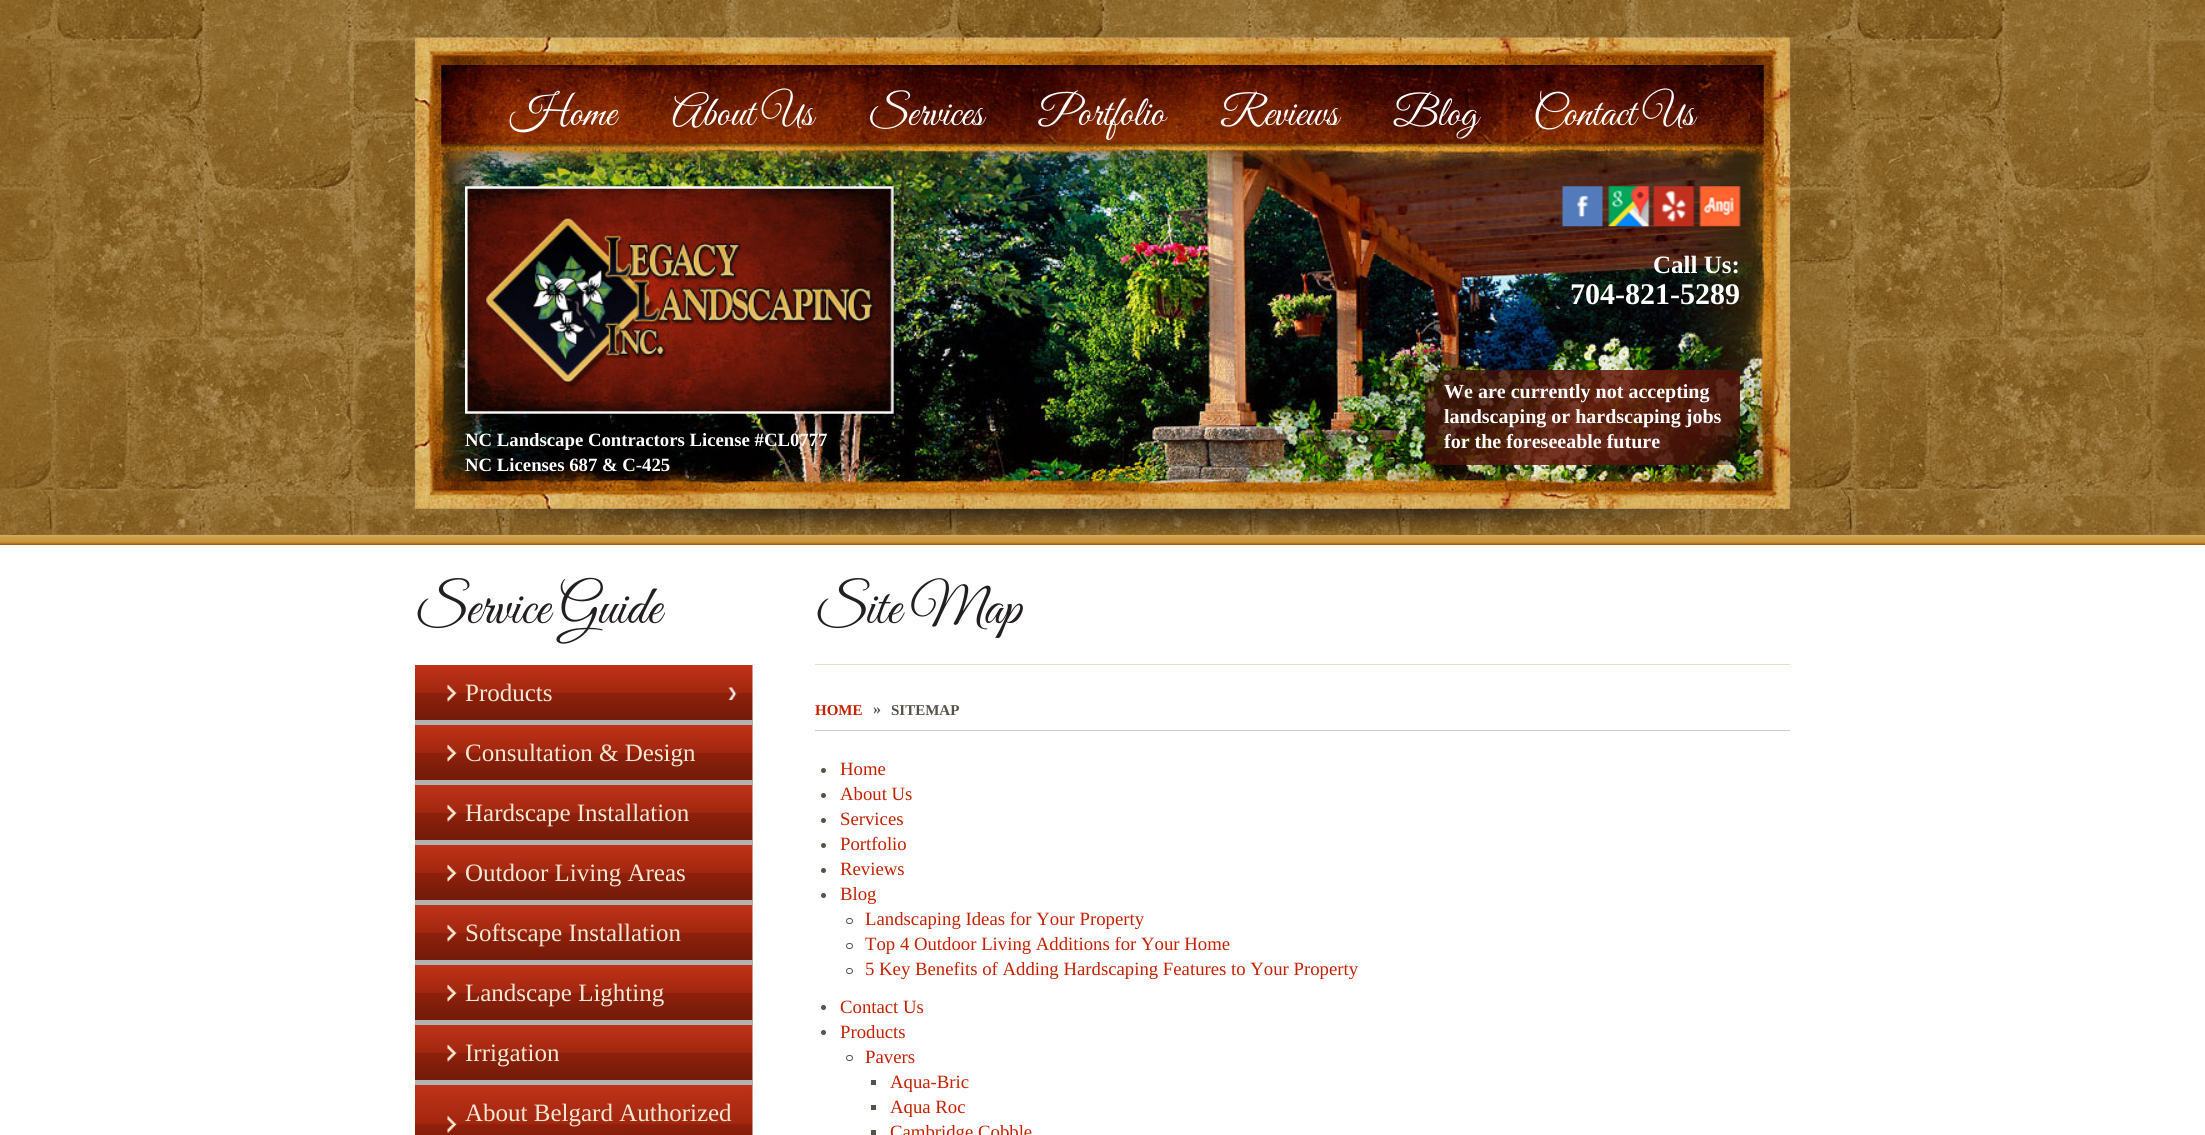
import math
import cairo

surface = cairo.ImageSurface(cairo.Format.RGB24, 2205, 1135)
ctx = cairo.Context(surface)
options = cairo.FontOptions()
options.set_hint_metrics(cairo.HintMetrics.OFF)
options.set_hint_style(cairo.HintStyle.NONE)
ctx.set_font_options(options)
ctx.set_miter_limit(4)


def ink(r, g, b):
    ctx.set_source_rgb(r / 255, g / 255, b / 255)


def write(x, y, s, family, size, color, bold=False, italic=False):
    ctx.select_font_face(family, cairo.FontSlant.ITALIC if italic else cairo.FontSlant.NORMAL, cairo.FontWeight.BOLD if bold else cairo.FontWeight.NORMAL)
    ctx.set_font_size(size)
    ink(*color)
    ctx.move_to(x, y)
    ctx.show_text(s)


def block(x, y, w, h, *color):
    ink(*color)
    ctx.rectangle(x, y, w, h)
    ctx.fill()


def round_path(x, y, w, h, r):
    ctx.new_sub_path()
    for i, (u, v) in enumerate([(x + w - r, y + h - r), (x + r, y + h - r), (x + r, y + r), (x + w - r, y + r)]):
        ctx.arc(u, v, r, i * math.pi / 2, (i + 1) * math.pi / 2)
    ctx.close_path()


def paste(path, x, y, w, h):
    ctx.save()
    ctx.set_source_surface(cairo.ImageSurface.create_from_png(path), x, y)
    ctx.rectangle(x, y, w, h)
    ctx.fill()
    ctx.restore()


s1 = dict(family="Great Vibes", size=42.5, color=(255, 255, 255))
s2 = dict(family="Liberation Serif", size=25, color=(255, 255, 255), bold=True)
s3 = dict(family="Liberation Serif", size=30, color=(255, 255, 255), bold=True)
s4 = dict(family="Liberation Serif", size=18.75, color=(255, 255, 255), bold=True)
s5 = dict(family="Liberation Serif", size=20, color=(255, 255, 255), bold=True)
s6 = dict(family="Great Vibes", size=55, color=(35, 31, 32))
s7 = dict(family="Liberation Serif", size=25, color=(242, 233, 212))
s8 = dict(family="Liberation Serif", size=15, color=(197, 32, 0), bold=True)
s9 = dict(family="Liberation Serif", size=16, color=(87, 82, 73), bold=True)
s10 = dict(family="Liberation Serif", size=15, color=(87, 82, 73), bold=True)
s11 = dict(family="Liberation Serif", size=18.75, color=(197, 32, 0))

ink(255, 255, 255)
ctx.paint()
paste("pic1.png", 0, 0, 2205, 545)
paste("pic3.png", 440, 148, 1325, 337)
paste("pic2.png", 441, 65, 1323, 84)
write(510, 125, "Home", **s1)
write(672, 125, "About Us", **s1)
write(868, 125, "Services", **s1)
write(1038, 125, "Portfolio", **s1)
write(1220, 125, "Reviews", **s1)
write(1393, 125, "Blog", **s1)
write(1533, 125, "Contact Us", **s1)
paste("pic4.png", 465, 186, 429, 228)
paste("pic5.png", 1562, 186, 41, 41)
paste("pic6.png", 1608, 186, 42, 41)
paste("pic7.png", 1653, 186, 42, 41)
paste("pic8.png", 1699, 186, 42, 41)
write(1653, 273, "Call Us:", **s2)
write(1570, 304, "704-821-5289", **s3)
write(465, 446, "NC Landscape Contractors License #CL0777", **s4)
write(465, 471, "NC Licenses 687 & C-425", **s4)
write(1444, 398, "We are currently not accepting", **s5)
write(1444, 423, "landscaping or hardscaping jobs", **s5)
write(1444, 448, "for the foreseeable future", **s5)
write(415, 623, "Service Guide", **s6)
paste("pic9.png", 415, 665, 338, 55)
block(415, 720, 338, 5, 178, 178, 178)
paste("pic10.png", 728, 687, 9, 13)
write(465, 701, "Products", **s7)
paste("pic9.png", 415, 725, 338, 55)
block(415, 780, 338, 5, 178, 178, 178)
write(465, 761, "Consultation & Design", **s7)
paste("pic9.png", 415, 785, 338, 55)
block(415, 840, 338, 5, 178, 178, 178)
write(465, 821, "Hardscape Installation", **s7)
paste("pic9.png", 415, 845, 338, 55)
block(415, 900, 338, 5, 178, 178, 178)
write(465, 881, "Outdoor Living Areas", **s7)
paste("pic9.png", 415, 905, 338, 55)
block(415, 960, 338, 5, 178, 178, 178)
write(465, 941, "Softscape Installation", **s7)
paste("pic9.png", 415, 965, 338, 55)
block(415, 1020, 338, 5, 178, 178, 178)
write(465, 1001, "Landscape Lighting", **s7)
paste("pic9.png", 415, 1025, 338, 55)
block(415, 1080, 338, 5, 178, 178, 178)
write(465, 1061, "Irrigation", **s7)
paste("pic11.png", 415, 1085, 338, 50)
write(465, 1121, "About Belgard Authorized", **s7)
block(815, 664, 975, 1, 234, 222, 199)
write(815, 623, "Site Map", **s6)
block(815, 730, 975, 1, 204, 204, 204)
write(815, 715, "HOME", **s8)
write(873, 714, "»", **s9)
write(891, 715, "SITEMAP", **s10)
ctx.new_path()
ctx.arc(823.5, 770.5, 2.5, 0, 2 * math.pi)
ctx.fill()
write(840, 775, "Home", **s11)
ink(87, 82, 73)
ctx.new_path()
ctx.arc(823.5, 795.5, 2.5, 0, 2 * math.pi)
ctx.fill()
write(840, 800, "About Us", **s11)
ink(87, 82, 73)
ctx.new_path()
ctx.arc(823.5, 820.5, 2.5, 0, 2 * math.pi)
ctx.fill()
write(840, 825, "Services", **s11)
ink(87, 82, 73)
ctx.new_path()
ctx.arc(823.5, 845.5, 2.5, 0, 2 * math.pi)
ctx.fill()
write(840, 850, "Portfolio", **s11)
ink(87, 82, 73)
ctx.new_path()
ctx.arc(823.5, 870.5, 2.5, 0, 2 * math.pi)
ctx.fill()
write(840, 875, "Reviews", **s11)
ink(87, 82, 73)
ctx.new_path()
ctx.arc(823.5, 895.5, 2.5, 0, 2 * math.pi)
ctx.fill()
write(840, 900, "Blog", **s11)
round_path(846.5, 918.5, 6, 5, 2.5)
ink(87, 82, 73)
ctx.set_line_width(1)
ctx.stroke()
write(865, 925, "Landscaping Ideas for Your Property", **s11)
round_path(846.5, 943.5, 6, 5, 2.5)
ink(87, 82, 73)
ctx.stroke()
write(865, 950, "Top 4 Outdoor Living Additions for Your Home", **s11)
round_path(846.5, 968.5, 6, 5, 2.5)
ink(87, 82, 73)
ctx.stroke()
write(865, 975, "5 Key Benefits of Adding Hardscaping Features to Your Property", **s11)
ink(87, 82, 73)
ctx.new_path()
ctx.arc(823.5, 1007.5, 2.5, 0, 2 * math.pi)
ctx.fill()
write(840, 1013, "Contact Us", **s11)
ink(87, 82, 73)
ctx.new_path()
ctx.arc(823.5, 1032.5, 2.5, 0, 2 * math.pi)
ctx.fill()
write(840, 1038, "Products", **s11)
round_path(846.5, 1055.5, 6, 5, 2.5)
ink(87, 82, 73)
ctx.stroke()
write(865, 1063, "Pavers", **s11)
block(871, 1080, 5, 5, 87, 82, 73)
write(890, 1088, "Aqua-Bric", **s11)
block(871, 1105, 5, 5, 87, 82, 73)
write(890, 1113, "Aqua Roc", **s11)
block(871, 1130, 5, 5, 87, 82, 73)
write(890, 1138, "Cambridge Cobble", **s11)
surface.write_to_png("screenshot.png")
